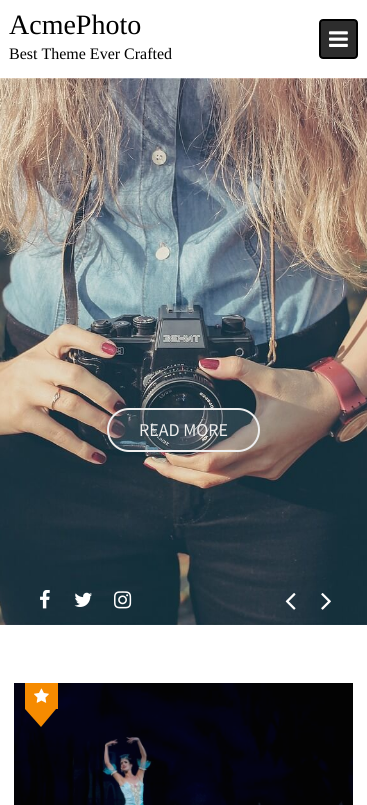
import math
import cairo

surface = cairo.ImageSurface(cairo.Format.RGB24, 367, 805)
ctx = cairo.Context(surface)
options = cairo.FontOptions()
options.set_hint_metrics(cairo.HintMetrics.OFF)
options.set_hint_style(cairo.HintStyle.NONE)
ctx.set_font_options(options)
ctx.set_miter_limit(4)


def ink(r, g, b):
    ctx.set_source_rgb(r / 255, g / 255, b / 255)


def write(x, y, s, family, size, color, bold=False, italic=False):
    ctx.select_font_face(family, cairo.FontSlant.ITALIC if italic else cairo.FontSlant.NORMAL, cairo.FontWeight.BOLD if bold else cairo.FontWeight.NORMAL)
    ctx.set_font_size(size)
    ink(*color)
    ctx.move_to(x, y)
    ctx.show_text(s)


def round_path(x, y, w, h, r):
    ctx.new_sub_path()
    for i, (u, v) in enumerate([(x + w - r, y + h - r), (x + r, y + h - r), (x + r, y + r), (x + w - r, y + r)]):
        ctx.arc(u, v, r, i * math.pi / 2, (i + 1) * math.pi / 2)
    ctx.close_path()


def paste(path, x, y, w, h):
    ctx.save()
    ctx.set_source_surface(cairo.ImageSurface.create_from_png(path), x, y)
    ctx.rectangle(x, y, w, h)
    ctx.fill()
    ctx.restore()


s1 = dict(family="Liberation Serif", size=28, color=(0, 0, 0))
s2 = dict(family="Liberation Serif", size=16, color=(0, 0, 0))
s3 = dict(family="Source Sans Pro", size=18, color=(238, 238, 238))

ink(255, 255, 255)
ctx.paint()
write(9, 34, "AcmePhoto", **s1)
write(9, 59, "Best Theme Ever Crafted", **s2)
ink(45, 45, 45)
round_path(320, 20, 37, 38, 3)
ctx.fill_preserve()
ink(0, 0, 0)
ctx.stroke()
paste("pic1.png", 329, 31, 19, 16)
paste("pic2.png", 0, 78, 367, 547)
ctx.set_source_rgba(1, 1, 1, 0.1)
round_path(108, 409, 151, 42, 21)
ctx.fill_preserve()
ink(238, 238, 238)
ctx.stroke()
write(139, 436, "READ MORE", **s3)
paste("pic3.png", 285, 593, 11, 17)
paste("pic4.png", 321, 593, 10, 17)
paste("pic5.png", 40, 590, 10, 19)
paste("pic6.png", 74, 592, 18, 15)
paste("pic7.png", 114, 591, 18, 18)
paste("pic8.png", 14, 683, 339, 122)
ctx.set_source_rgba(0.973, 0.549, 0, 0.99)
ctx.rectangle(25, 683, 33, 26)
ctx.fill()
paste("pic9.png", 34, 688, 15, 15)
ctx.new_path()
ctx.move_to(25, 709)
ctx.line_to(56, 709)
ctx.line_to(41, 727)
ctx.close_path()
ctx.fill()
surface.write_to_png("screenshot.png")
